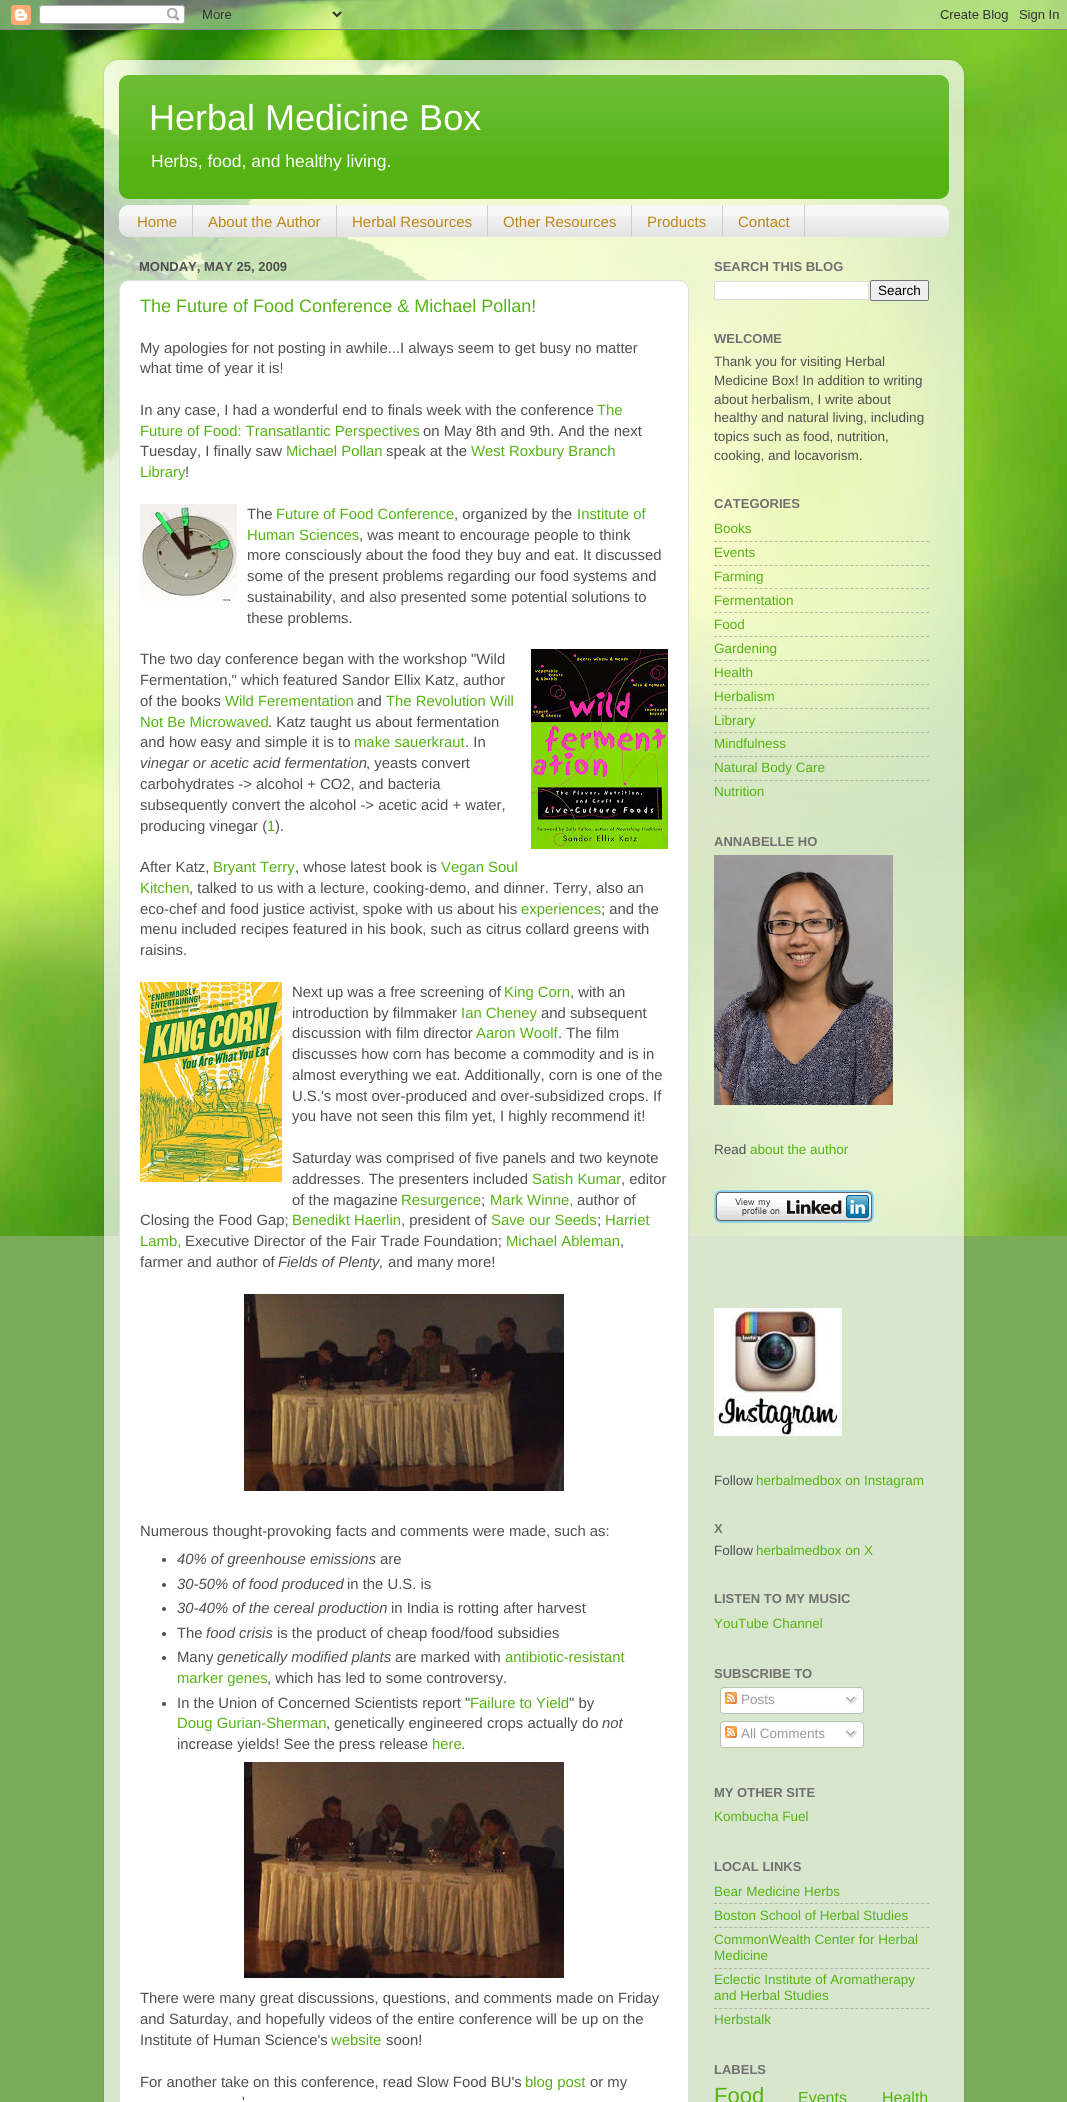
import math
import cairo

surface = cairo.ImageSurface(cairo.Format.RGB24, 1067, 2102)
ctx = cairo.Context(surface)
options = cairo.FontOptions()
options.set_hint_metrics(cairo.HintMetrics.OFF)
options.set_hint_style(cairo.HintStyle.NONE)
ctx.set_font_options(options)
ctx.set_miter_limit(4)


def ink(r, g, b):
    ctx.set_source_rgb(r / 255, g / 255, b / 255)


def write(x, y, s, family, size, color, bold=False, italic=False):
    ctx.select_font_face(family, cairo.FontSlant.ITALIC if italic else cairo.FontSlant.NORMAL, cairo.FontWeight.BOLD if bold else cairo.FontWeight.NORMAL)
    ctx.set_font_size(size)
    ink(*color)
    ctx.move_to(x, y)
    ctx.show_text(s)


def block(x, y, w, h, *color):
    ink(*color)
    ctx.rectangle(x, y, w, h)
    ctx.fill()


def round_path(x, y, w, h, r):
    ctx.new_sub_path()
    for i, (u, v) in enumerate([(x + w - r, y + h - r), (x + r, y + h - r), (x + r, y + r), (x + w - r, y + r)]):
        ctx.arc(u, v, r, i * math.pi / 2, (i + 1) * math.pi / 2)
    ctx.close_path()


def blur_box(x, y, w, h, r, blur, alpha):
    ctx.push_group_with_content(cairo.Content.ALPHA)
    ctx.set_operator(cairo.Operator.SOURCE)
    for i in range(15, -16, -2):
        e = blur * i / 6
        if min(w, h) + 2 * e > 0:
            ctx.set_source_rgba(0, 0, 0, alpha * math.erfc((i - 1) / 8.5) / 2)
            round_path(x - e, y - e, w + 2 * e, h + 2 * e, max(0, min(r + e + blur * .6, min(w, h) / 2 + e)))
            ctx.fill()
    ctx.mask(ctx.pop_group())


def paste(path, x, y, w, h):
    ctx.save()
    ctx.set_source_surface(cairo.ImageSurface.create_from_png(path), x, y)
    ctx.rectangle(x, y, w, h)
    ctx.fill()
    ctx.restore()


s1 = dict(family="Liberation Sans", size=36, color=(255, 255, 255))
s2 = dict(family="Liberation Sans", size=17.5, color=(255, 255, 255))
s3 = dict(family="Liberation Sans", size=15, color=(189, 136, 21))
s4 = dict(family="Liberation Sans", size=13, color=(79, 79, 79), bold=True)
s5 = dict(family="Liberation Sans", size=18, color=(84, 179, 19))
s6 = dict(family="Liberation Sans", size=14.85, color=(79, 79, 79))
s7 = dict(family="Liberation Sans", size=14.85, color=(84, 179, 19))
s8 = dict(family="Liberation Sans", size=14.85, color=(79, 79, 79), italic=True)
s9 = dict(family="Liberation Sans", size=13, color=(112, 112, 112), bold=True)
s10 = dict(family="Liberation Sans", size=13.5, color=(0, 0, 0))
s11 = dict(family="Liberation Sans", size=13.5, color=(79, 79, 79))
s12 = dict(family="Liberation Sans", size=13.5, color=(84, 179, 19))
s13 = dict(family="Liberation Sans", size=13.5, color=(153, 153, 153))
s14 = dict(family="Liberation Sans", size=22, color=(84, 179, 19))
s15 = dict(family="Liberation Sans", size=16, color=(84, 179, 19))

ink(123, 172, 90)
ctx.paint()
paste("pic1.png", 0, 0, 1067, 1236)
paste("pic2.png", 0, 0, 1067, 30)
ctx.save()
ctx.set_fill_rule(cairo.FillRule.EVEN_ODD)
ctx.new_path()
ctx.move_to(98, 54)
ctx.line_to(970, 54)
ctx.line_to(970, 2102)
ctx.line_to(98, 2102)
ctx.close_path()
ctx.move_to(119, 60)
ctx.line_to(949, 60)
ctx.curve_to(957.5, 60, 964, 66.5, 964, 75)
ctx.line_to(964, 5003)
ctx.curve_to(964, 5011.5, 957.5, 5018, 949, 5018)
ctx.line_to(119, 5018)
ctx.curve_to(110.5, 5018, 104, 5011.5, 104, 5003)
ctx.line_to(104, 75)
ctx.curve_to(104, 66.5, 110.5, 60, 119, 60)
ctx.close_path()
ctx.clip()
ink(0, 0, 0)
blur_box(104, 60, 860, 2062, 15, 1.5, 0.15)
ctx.restore()
paste("pic3.png", 104, 60, 860, 2042)
ink(84, 179, 19)
round_path(119, 75, 830, 124, 10)
ctx.fill()
paste("pic4.png", 119, 75, 830, 84)
write(149, 130, "Herbal Medicine Box", **s1)
write(151, 167, "Herbs, food, and healthy living.", **s2)
ink(247, 247, 247)
round_path(119, 205, 830, 32, 10)
ctx.fill()
paste("pic5.png", 119, 216, 830, 21)
block(192, 205, 1, 32, 206, 206, 206)
write(137, 227, "Home", **s3)
block(336, 205, 1, 32, 206, 206, 206)
write(208, 227, "About the Author", **s3)
block(487, 205, 1, 32, 206, 206, 206)
write(352, 227, "Herbal Resources", **s3)
block(631, 205, 1, 32, 206, 206, 206)
write(503, 227, "Other Resources", **s3)
block(722, 205, 1, 32, 206, 206, 206)
write(647, 227, "Products", **s3)
block(804, 205, 1, 32, 206, 206, 206)
write(738, 227, "Contact", **s3)
write(139, 271, "MONDAY, MAY 25, 2009", **s4)
ink(255, 255, 255)
round_path(119.5, 280.5, 569, 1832, 9.5)
ctx.fill_preserve()
ink(223, 223, 223)
ctx.set_line_width(1)
ctx.stroke()
write(140, 312, "The Future of Food Conference & Michael Pollan!", **s5)
write(140, 353, "My apologies for not posting in awhile...I always seem to get busy no matter", **s6)
write(140, 373, "what time of year it is!", **s6)
write(140, 415, "In any case, I had a wonderful end to finals week with the conference", **s6)
write(597, 415, "The", **s7)
write(140, 436, "Future of Food: Transatlantic Perspectives", **s7)
write(423, 436, "on May 8th and 9th. And the next", **s6)
write(140, 456, "Tuesday, I finally saw", **s6)
write(286, 456, "Michael Pollan", **s7)
write(386, 456, "speak at the", **s6)
write(471, 456, "West Roxbury Branch", **s7)
write(140, 477, "Library", **s7)
write(185, 477, "!", **s6)
paste("pic6.png", 140, 504, 97, 97)
write(247, 519, "The", **s6)
write(276, 519, "Future of Food Conference", **s7)
write(454, 519, ", organized by the", **s6)
write(577, 519, "Institute of", **s7)
write(247, 540, "Human Sciences", **s7)
write(359, 540, ", was meant to encourage people to think", **s6)
write(247, 560, "more consciously about the food they buy and eat. It discussed", **s6)
write(247, 581, "some of the present problems regarding our food systems and", **s6)
write(247, 602, "sustainability, and also presented some potential solutions to", **s6)
write(247, 623, "these problems.", **s6)
write(140, 664, "The two day conference began with the workshop \"Wild", **s6)
paste("pic7.png", 531, 649, 137, 200)
write(140, 685, "Fermentation,\" which featured Sandor Ellix Katz, author", **s6)
write(140, 706, "of the books", **s6)
write(225, 706, "Wild Ferementation", **s7)
write(357, 706, "and", **s6)
write(386, 706, "The Revolution Will", **s7)
write(140, 727, "Not Be Microwaved", **s7)
write(268, 727, ". Katz taught us about fermentation", **s6)
write(140, 747, "and how easy and simple it is to", **s6)
write(354, 747, "make sauerkraut", **s7)
write(465, 747, ". In", **s6)
write(140, 768, "vinegar or acetic acid fermentation", **s8)
write(366, 768, ", yeasts convert", **s6)
write(140, 789, "carbohydrates -> alcohol + CO2, and bacteria", **s6)
write(140, 810, "subsequently convert the alcohol -> acetic acid + water,", **s6)
write(140, 831, "producing vinegar (", **s6)
write(267, 831, "1", **s7)
write(275, 831, ").", **s6)
write(140, 872, "After Katz,", **s6)
write(213, 872, "Bryant Terry", **s7)
write(295, 872, ", whose latest book is", **s6)
write(441, 872, "Vegan Soul", **s7)
write(140, 893, "Kitchen", **s7)
write(189, 893, ", talked to us with a lecture, cooking-demo, and dinner. Terry, also an", **s6)
write(140, 914, "eco-chef and food justice activist, spoke with us about his", **s6)
write(521, 914, "experiences", **s7)
write(601, 914, "; and the", **s6)
write(140, 934, "menu included recipes featured in his book, such as citrus collard greens with", **s6)
write(140, 955, "raisins.", **s6)
paste("pic8.png", 140, 982, 142, 200)
write(292, 997, "Next up was a free screening of", **s6)
write(504, 997, "King Corn", **s7)
write(570, 997, ", with an", **s6)
write(292, 1018, "introduction by filmmaker", **s6)
write(461, 1018, "Ian Cheney", **s7)
write(541, 1018, "and subsequent", **s6)
write(292, 1038, "discussion with film director", **s6)
write(476, 1038, "Aaron Woolf", **s7)
write(558, 1038, ". The film", **s6)
write(292, 1059, "discusses how corn has become a commodity and is in", **s6)
write(292, 1080, "almost everything we eat. Additionally, corn is one of the", **s6)
write(292, 1101, "U.S.'s most over-produced and over-subsidized crops. If", **s6)
write(292, 1121, "you have not seen this film yet, I highly recommend it!", **s6)
write(292, 1163, "Saturday was comprised of five panels and two keynote", **s6)
write(292, 1184, "addresses. The presenters included", **s6)
write(532, 1184, "Satish Kumar", **s7)
write(621, 1184, ", editor", **s6)
write(292, 1205, "of the magazine", **s6)
write(401, 1205, "Resurgence", **s7)
write(481, 1205, ";", **s6)
write(490, 1205, "Mark Winne,", **s7)
write(577, 1205, "author of", **s6)
write(140, 1225, "Closing the Food Gap;", **s6)
write(292, 1225, "Benedikt Haerlin", **s7)
write(401, 1225, ", president of", **s6)
write(491, 1225, "Save our Seeds", **s7)
write(597, 1225, ";", **s6)
write(605, 1225, "Harriet", **s7)
write(140, 1246, "Lamb,", **s7)
write(185, 1246, "Executive Director of the Fair Trade Foundation;", **s6)
write(506, 1246, "Michael Ableman", **s7)
write(620, 1246, ",", **s6)
write(140, 1267, "farmer and author of", **s6)
write(278, 1267, "Fields of Plenty,", **s8)
write(388, 1267, "and many more!", **s6)
paste("pic9.png", 244, 1294, 320, 197)
write(140, 1536, "Numerous thought-provoking facts and comments were made, such as:", **s6)
ctx.new_path()
ctx.arc(164, 1560, 2, 0, 2 * math.pi)
ctx.fill()
write(177, 1564, "40% of greenhouse emissions", **s8)
write(380, 1564, "are", **s6)
ctx.new_path()
ctx.arc(164, 1585, 2, 0, 2 * math.pi)
ctx.fill()
write(177, 1589, "30-50% of food produced", **s8)
write(347, 1589, "in the U.S. is", **s6)
ctx.new_path()
ctx.arc(164, 1609, 2, 0, 2 * math.pi)
ctx.fill()
write(177, 1613, "30-40% of the cereal production", **s8)
write(391, 1613, "in India is rotting after harvest", **s6)
ctx.new_path()
ctx.arc(164, 1634, 2, 0, 2 * math.pi)
ctx.fill()
write(177, 1638, "The", **s6)
write(206, 1638, "food crisis", **s8)
write(277, 1638, "is the product of cheap food/food subsidies", **s6)
ctx.new_path()
ctx.arc(164, 1658, 2, 0, 2 * math.pi)
ctx.fill()
write(177, 1662, "Many", **s6)
write(217, 1662, "genetically modified plants", **s8)
write(395, 1662, "are marked with", **s6)
write(505, 1662, "antibiotic-resistant", **s7)
write(177, 1683, "marker genes", **s7)
write(267, 1683, ", which has led to some controversy.", **s6)
ctx.new_path()
ctx.arc(164, 1704, 2, 0, 2 * math.pi)
ctx.fill()
write(177, 1708, "In the Union of Concerned Scientists report \"", **s6)
write(470, 1708, "Failure to Yield", **s7)
write(569, 1708, "\" by", **s6)
write(177, 1728, "Doug Gurian-Sherman", **s7)
write(326, 1728, ", genetically engineered crops actually do", **s6)
write(602, 1728, "not", **s8)
write(177, 1749, "increase yields! See the press release", **s6)
write(432, 1749, "here", **s7)
write(461, 1749, ".", **s6)
paste("pic10.png", 244, 1762, 320, 216)
write(140, 2003, "There were many great discussions, questions, and comments made on Friday", **s6)
write(140, 2024, "and Saturday, and hopefully videos of the entire conference will be up on the", **s6)
write(140, 2045, "Institute of Human Science's", **s6)
write(331, 2045, "website", **s7)
write(386, 2045, "soon!", **s6)
write(140, 2087, "For another take on this conference, read Slow Food BU's", **s6)
write(525, 2087, "blog post", **s7)
write(590, 2087, "or my", **s6)
write(242, 2107, "'", **s6)
write(714, 271, "SEARCH THIS BLOG", **s9)
ink(255, 255, 255)
ctx.rectangle(714.5, 281.5, 154, 18)
ctx.fill_preserve()
ink(221, 221, 221)
ctx.stroke()
ink(239, 239, 239)
round_path(870.5, 280.5, 58, 20, 1.5)
ctx.fill_preserve()
ink(118, 118, 118)
ctx.stroke()
write(878, 295, "Search", **s10)
write(714, 343, "WELCOME", **s9)
write(714, 366, "Thank you for visiting Herbal", **s11)
write(714, 385, "Medicine Box! In addition to writing", **s11)
write(714, 404, "about herbalism, I write about", **s11)
write(714, 422, "healthy and natural living, including", **s11)
write(714, 441, "topics such as food, nutrition,", **s11)
write(714, 460, "cooking, and locavorism.", **s11)
write(714, 508, "CATEGORIES", **s9)
write(714, 533, "Books", **s12)
ctx.new_path()
ctx.move_to(714, 541.5)
ctx.line_to(929, 541.5)
ctx.set_source_rgba(0.502, 0.502, 0.502, 0.5)
ctx.set_dash([3, 2.05])
ctx.stroke()
write(714, 557, "Events", **s12)
ctx.new_path()
ctx.move_to(714, 565.5)
ctx.line_to(929, 565.5)
ctx.set_source_rgba(0.502, 0.502, 0.502, 0.5)
ctx.stroke()
write(714, 581, "Farming", **s12)
ctx.new_path()
ctx.move_to(714, 588.5)
ctx.line_to(929, 588.5)
ctx.set_source_rgba(0.502, 0.502, 0.502, 0.5)
ctx.stroke()
write(714, 605, "Fermentation", **s12)
ctx.new_path()
ctx.move_to(714, 612.5)
ctx.line_to(929, 612.5)
ctx.set_source_rgba(0.502, 0.502, 0.502, 0.5)
ctx.stroke()
write(714, 629, "Food", **s12)
ctx.new_path()
ctx.move_to(714, 636.5)
ctx.line_to(929, 636.5)
ctx.set_source_rgba(0.502, 0.502, 0.502, 0.5)
ctx.stroke()
write(714, 653, "Gardening", **s12)
ctx.new_path()
ctx.move_to(714, 660.5)
ctx.line_to(929, 660.5)
ctx.set_source_rgba(0.502, 0.502, 0.502, 0.5)
ctx.stroke()
write(714, 677, "Health", **s12)
ctx.new_path()
ctx.move_to(714, 684.5)
ctx.line_to(929, 684.5)
ctx.set_source_rgba(0.502, 0.502, 0.502, 0.5)
ctx.stroke()
write(714, 701, "Herbalism", **s12)
ctx.new_path()
ctx.move_to(714, 708.5)
ctx.line_to(929, 708.5)
ctx.set_source_rgba(0.502, 0.502, 0.502, 0.5)
ctx.stroke()
write(714, 725, "Library", **s12)
ctx.new_path()
ctx.move_to(714, 732.5)
ctx.line_to(929, 732.5)
ctx.set_source_rgba(0.502, 0.502, 0.502, 0.5)
ctx.stroke()
write(714, 748, "Mindfulness", **s12)
ctx.new_path()
ctx.move_to(714, 756.5)
ctx.line_to(929, 756.5)
ctx.set_source_rgba(0.502, 0.502, 0.502, 0.5)
ctx.stroke()
write(714, 772, "Natural Body Care", **s12)
ctx.new_path()
ctx.move_to(714, 780.5)
ctx.line_to(929, 780.5)
ctx.set_source_rgba(0.502, 0.502, 0.502, 0.5)
ctx.stroke()
write(714, 796, "Nutrition", **s12)
write(714, 846, "ANNABELLE HO", **s9)
paste("pic11.png", 714, 855, 179, 250)
write(714, 1154, "Read", **s11)
write(750, 1154, "about the author", **s12)
paste("pic12.png", 714, 1190, 160, 33)
paste("pic13.png", 714, 1308, 128, 128)
write(714, 1485, "Follow", **s11)
write(756, 1485, "herbalmedbox on Instagram", **s12)
write(714, 1533, "X", **s9)
write(714, 1555, "Follow", **s11)
write(756, 1555, "herbalmedbox on X", **s12)
write(714, 1603, "LISTEN TO MY MUSIC", **s9)
write(714, 1628, "YouTube Channel", **s12)
write(714, 1678, "SUBSCRIBE TO", **s9)
paste("pic14.png", 720, 1687, 144, 24)
paste("pic15.png", 725, 1692, 12, 12)
write(741, 1704, "Posts", **s13)
paste("pic16.png", 845, 1696, 13, 9)
paste("pic17.png", 720, 1711, 144, 3)
paste("pic14.png", 720, 1721, 144, 24)
paste("pic15.png", 725, 1726, 12, 12)
write(741, 1738, "All Comments", **s13)
paste("pic16.png", 845, 1730, 13, 9)
paste("pic17.png", 720, 1745, 144, 3)
write(714, 1797, "MY OTHER SITE", **s9)
write(714, 1821, "Kombucha Fuel", **s12)
write(714, 1871, "LOCAL LINKS", **s9)
write(714, 1896, "Bear Medicine Herbs", **s12)
ctx.new_path()
ctx.move_to(714, 1903.5)
ctx.line_to(929, 1903.5)
ink(172, 179, 167)
ctx.stroke()
write(714, 1920, "Boston School of Herbal Studies", **s12)
ctx.new_path()
ctx.move_to(714, 1927.5)
ctx.line_to(929, 1927.5)
ink(172, 179, 167)
ctx.stroke()
write(714, 1944, "CommonWealth Center for Herbal", **s12)
write(714, 1960, "Medicine", **s12)
ctx.new_path()
ctx.move_to(714, 1968.5)
ctx.line_to(929, 1968.5)
ink(172, 179, 167)
ctx.stroke()
write(714, 1984, "Eclectic Institute of Aromatherapy", **s12)
write(714, 2000, "and Herbal Studies", **s12)
ctx.new_path()
ctx.move_to(714, 2008.5)
ctx.line_to(929, 2008.5)
ink(172, 179, 167)
ctx.stroke()
write(714, 2024, "Herbstalk", **s12)
write(714, 2074, "LABELS", **s9)
write(714, 2103, "Food", **s14)
write(798, 2103, "Events", **s15)
write(882, 2103, "Health", **s15)
surface.write_to_png("screenshot.png")
